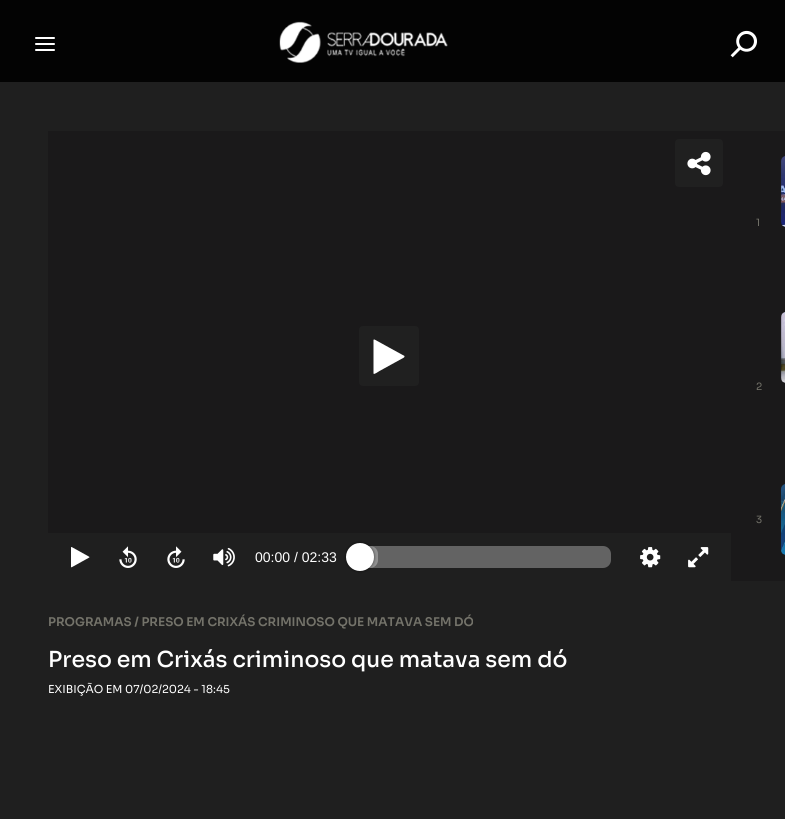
import math
import cairo

surface = cairo.ImageSurface(cairo.Format.RGB24, 785, 819)
ctx = cairo.Context(surface)
options = cairo.FontOptions()
options.set_hint_metrics(cairo.HintMetrics.OFF)
options.set_hint_style(cairo.HintStyle.NONE)
ctx.set_font_options(options)
ctx.set_miter_limit(4)


def ink(r, g, b):
    ctx.set_source_rgb(r / 255, g / 255, b / 255)


def write(x, y, s, family, size, color, bold=False, italic=False):
    ctx.select_font_face(family, cairo.FontSlant.ITALIC if italic else cairo.FontSlant.NORMAL, cairo.FontWeight.BOLD if bold else cairo.FontWeight.NORMAL)
    ctx.set_font_size(size)
    ink(*color)
    ctx.move_to(x, y)
    ctx.show_text(s)


def block(x, y, w, h, *color):
    ink(*color)
    ctx.rectangle(x, y, w, h)
    ctx.fill()


def round_path(x, y, w, h, r):
    ctx.new_sub_path()
    for i, (u, v) in enumerate([(x + w - r, y + h - r), (x + r, y + h - r), (x + r, y + r), (x + w - r, y + r)]):
        ctx.arc(u, v, r, i * math.pi / 2, (i + 1) * math.pi / 2)
    ctx.close_path()


def blur_box(x, y, w, h, r, blur, alpha):
    ctx.push_group_with_content(cairo.Content.ALPHA)
    ctx.set_operator(cairo.Operator.SOURCE)
    for i in range(15, -16, -2):
        e = blur * i / 6
        if min(w, h) + 2 * e > 0:
            ctx.set_source_rgba(0, 0, 0, alpha * math.erfc((i - 1) / 8.5) / 2)
            round_path(x - e, y - e, w + 2 * e, h + 2 * e, max(0, min(r + e + blur * .6, min(w, h) / 2 + e)))
            ctx.fill()
    ctx.mask(ctx.pop_group())


def paste(path, x, y, w, h):
    ctx.save()
    ctx.set_source_surface(cairo.ImageSurface.create_from_png(path), x, y)
    ctx.rectangle(x, y, w, h)
    ctx.fill()
    ctx.restore()


s1 = dict(family="Sora", size=10, color=(116, 115, 106))
s2 = dict(family="Liberation Sans", size=14, color=(255, 255, 255))
s3 = dict(family="Sora SemiBold", size=12, color=(116, 115, 106))
s4 = dict(family="Sora Medium", size=22, color=(255, 255, 255))
s5 = dict(family="Sora", size=11, color=(255, 255, 255))

ink(31, 31, 31)
ctx.paint()
block(0, 0, 785, 82, 3, 3, 3)
ctx.new_path()
ctx.move_to(36, 38)
ctx.line_to(54, 38)
ctx.move_to(36, 44)
ctx.line_to(54, 44)
ctx.move_to(36, 50)
ctx.line_to(54, 50)
ink(255, 255, 255)
ctx.set_line_cap(cairo.LineCap.ROUND)
ctx.set_line_join(cairo.LineJoin.ROUND)
ctx.stroke()
paste("pic1.png", 279, 21, 169, 42)
paste("pic2.png", 730, 30, 27, 28)
block(731, 131, 54, 450, 26, 25, 26)
write(756, 226, "1", **s1)
paste("pic3.png", 781, 156, 4, 71)
paste("pic4.png", 781, 312, 4, 71)
write(756, 390, "2", **s1)
write(756, 523, "3", **s1)
paste("pic5.png", 781, 484, 4, 71)
block(48, 131, 683, 402, 26, 25, 26)
ink(32, 32, 32)
round_path(675, 139, 48, 48, 4)
ctx.fill()
paste("pic6.png", 687, 151, 24, 25)
round_path(359, 326, 60, 60, 4)
ctx.fill()
ink(255, 255, 255)
ctx.new_path()
ctx.move_to(404, 357.5)
ctx.line_to(379.5, 371)
ctx.curve_to(377.5, 372, 374, 375, 373.5, 373.5)
ctx.line_to(373.5, 340)
ctx.curve_to(373.5, 339.5, 374, 339.5, 374.5, 339.5)
ctx.line_to(404.5, 356)
ctx.curve_to(404.5, 356.5, 404.5, 357, 404, 357.5)
ctx.close_path()
ctx.fill()
paste("pic7.png", 71, 547, 19, 21)
paste("pic8.png", 119, 546, 18, 22)
paste("pic9.png", 167, 546, 18, 22)
paste("pic10.png", 213, 547, 22, 20)
write(255, 562, "00:00", **s2)
write(294, 562, "/ 02:33", **s2)
ink(99, 99, 99)
round_path(360, 546, 251, 22, 8)
ctx.fill()
ctx.set_source_rgba(1, 1, 1, 0.3)
round_path(360, 546, 18, 22, 8)
ctx.fill()
ink(0, 0, 0)
blur_box(345, 542, 30, 30, 15, 1, 0.3)
ink(255, 255, 255)
ctx.arc(360, 557, 14, 0, 2 * math.pi)
ctx.fill()
paste("pic11.png", 640, 547, 21, 21)
paste("pic12.png", 688, 547, 21, 21)
write(48, 626, "PROGRAMAS / PRESO EM CRIXÁS CRIMINOSO QUE MATAVA SEM DÓ", **s3)
write(48, 667, "Preso em Crixás criminoso que matava sem dó", **s4)
write(48, 693, "EXIBIÇÃO EM 07/02/2024 - 18:45", **s5)
surface.write_to_png("screenshot.png")
